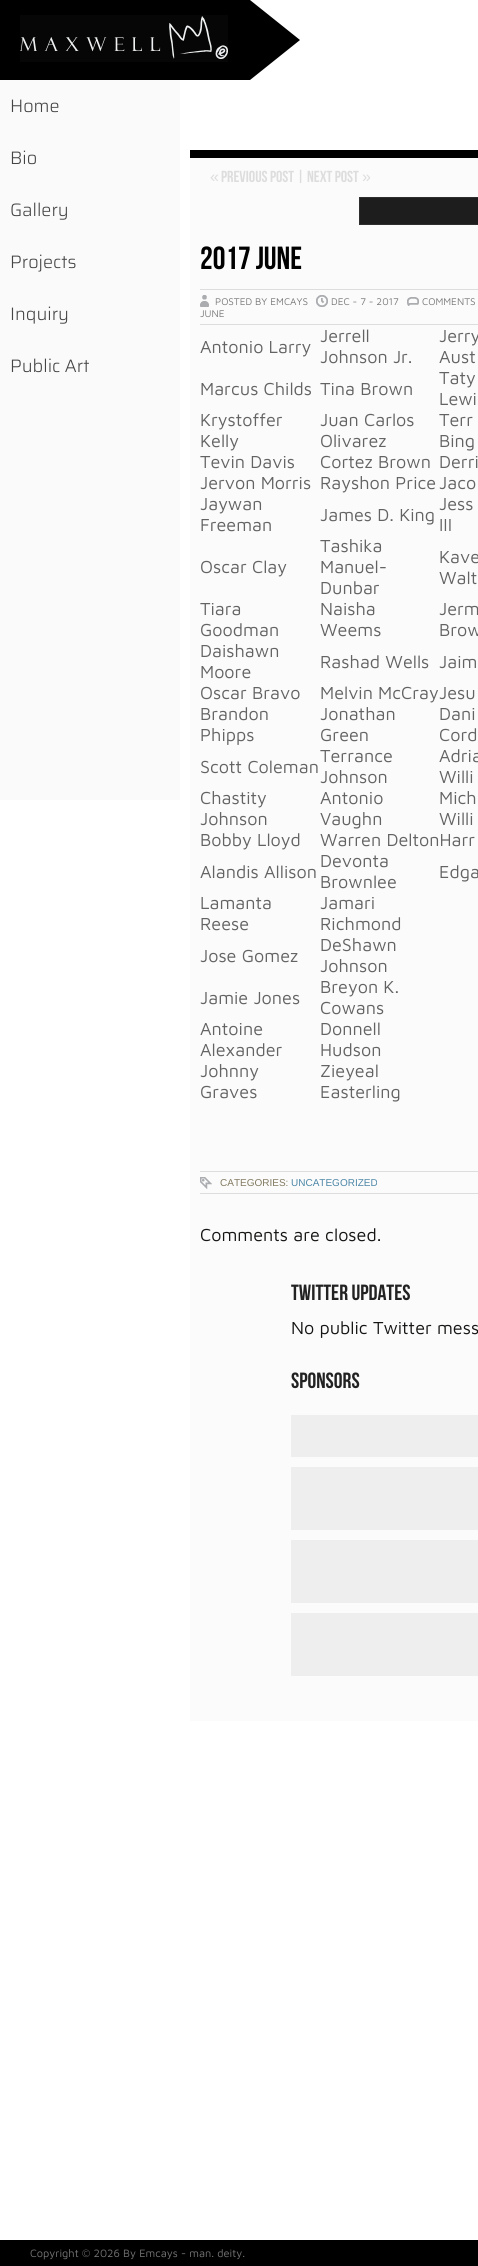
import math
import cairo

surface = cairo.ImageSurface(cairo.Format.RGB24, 478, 2266)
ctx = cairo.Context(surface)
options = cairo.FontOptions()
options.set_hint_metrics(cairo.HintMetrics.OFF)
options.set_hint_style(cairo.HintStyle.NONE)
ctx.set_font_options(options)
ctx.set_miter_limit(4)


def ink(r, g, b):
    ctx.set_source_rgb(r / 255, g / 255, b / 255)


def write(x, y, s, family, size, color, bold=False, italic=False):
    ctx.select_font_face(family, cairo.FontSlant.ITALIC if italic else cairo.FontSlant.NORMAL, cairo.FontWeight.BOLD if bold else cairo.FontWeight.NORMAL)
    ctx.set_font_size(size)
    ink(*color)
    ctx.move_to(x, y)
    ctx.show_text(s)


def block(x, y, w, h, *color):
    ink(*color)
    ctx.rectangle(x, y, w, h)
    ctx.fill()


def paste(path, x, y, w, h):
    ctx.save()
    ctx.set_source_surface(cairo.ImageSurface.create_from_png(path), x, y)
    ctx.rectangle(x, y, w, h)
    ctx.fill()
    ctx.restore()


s1 = dict(family="Saira Light", size=18, color=(68, 68, 68))
s2 = dict(family="Liberation Sans", size=16, color=(221, 221, 221))
s3 = dict(family="Bebas Neue", size=16, color=(221, 221, 221))
s4 = dict(family="Bebas Neue", size=32, color=(0, 0, 0))
s5 = dict(family="Maven Pro", size=10, color=(119, 119, 119))
s6 = dict(family="Maven Pro", size=18, color=(99, 99, 99))
s7 = dict(family="Liberation Sans", size=10, color=(130, 122, 96))
s8 = dict(family="Liberation Sans", size=10, color=(77, 135, 167))
s9 = dict(family="Maven Pro", size=18, color=(22, 21, 20))
s10 = dict(family="Bebas Neue", size=22, color=(34, 34, 34))
s11 = dict(family="Maven Pro", size=11, color=(119, 119, 119))

ink(255, 255, 255)
ctx.paint()
block(0, 80, 180, 720, 250, 250, 250)
paste("pic1.png", 0, 0, 300, 80)
paste("pic2.png", 20, 15, 208, 47)
write(10, 112, "Home", **s1)
write(10, 164, "Bio", **s1)
write(10, 216, "Gallery", **s1)
write(10, 268, "Projects", **s1)
write(10, 320, "Inquiry", **s1)
write(10, 372, "Public Art", **s1)
block(190, 158, 288, 1563, 251, 251, 251)
block(190, 150, 288, 8, 0, 0, 0)
write(210, 182, "«", **s2)
write(221, 182, "Previous Post | Next Post", **s3)
write(362, 182, "»", **s2)
ink(29, 29, 29)
ctx.rectangle(359.5, 197.5, 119, 27)
ctx.fill_preserve()
ink(46, 46, 46)
ctx.set_line_width(1)
ctx.stroke()
write(200, 269, "2017 JUNE", **s4)
block(200, 289, 278, 1, 221, 221, 221)
block(200, 324, 278, 1, 221, 221, 221)
paste("pic3.png", 200, 295, 9, 12)
write(215, 305, "POSTED BY EMCAYS", **s5)
paste("pic4.png", 316, 295, 12, 12)
write(331, 305, "DEC - 7 - 2017", **s5)
paste("pic5.png", 407, 297, 12, 9)
write(422, 305, "COMMENTS", **s5)
write(200, 317, "JUNE", **s5)
write(200, 353, "Antonio Larry", **s6)
write(320, 342, "Jerrell", **s6)
write(320, 363, "Johnson Jr.", **s6)
write(439, 342, "Jerry", **s6)
write(439, 363, "Aust", **s6)
write(200, 395, "Marcus Childs", **s6)
write(320, 395, "Tina Brown", **s6)
write(439, 384, "Taty", **s6)
write(439, 405, "Lewi", **s6)
write(200, 426, "Krystoffer", **s6)
write(200, 447, "Kelly", **s6)
write(320, 426, "Juan Carlos", **s6)
write(320, 447, "Olivarez", **s6)
write(439, 426, "Terr", **s6)
write(439, 447, "Bing", **s6)
write(200, 468, "Tevin Davis", **s6)
write(320, 468, "Cortez Brown", **s6)
write(439, 468, "Derri", **s6)
write(200, 489, "Jervon Morris", **s6)
write(320, 489, "Rayshon Price", **s6)
write(439, 489, "Jaco", **s6)
write(200, 510, "Jaywan", **s6)
write(200, 531, "Freeman", **s6)
write(320, 521, "James D. King", **s6)
write(439, 510, "Jess", **s6)
write(439, 531, "III", **s6)
write(200, 573, "Oscar Clay", **s6)
write(320, 552, "Tashika", **s6)
write(320, 573, "Manuel-", **s6)
write(320, 594, "Dunbar", **s6)
write(439, 563, "Kave", **s6)
write(439, 584, "Walt", **s6)
write(200, 615, "Tiara", **s6)
write(200, 636, "Goodman", **s6)
write(320, 615, "Naisha", **s6)
write(320, 636, "Weems", **s6)
write(439, 615, "Jerm", **s6)
write(439, 636, "Brow", **s6)
write(200, 657, "Daishawn", **s6)
write(200, 678, "Moore", **s6)
write(320, 668, "Rashad Wells", **s6)
write(439, 668, "Jaim", **s6)
write(200, 699, "Oscar Bravo", **s6)
write(320, 699, "Melvin McCray", **s6)
write(439, 699, "Jesu", **s6)
write(200, 720, "Brandon", **s6)
write(200, 741, "Phipps", **s6)
write(320, 720, "Jonathan", **s6)
write(320, 741, "Green", **s6)
write(439, 720, "Dani", **s6)
write(439, 741, "Cord", **s6)
write(200, 773, "Scott Coleman", **s6)
write(320, 762, "Terrance", **s6)
write(320, 783, "Johnson", **s6)
write(439, 762, "Adria", **s6)
write(439, 783, "Willi", **s6)
write(200, 804, "Chastity", **s6)
write(200, 825, "Johnson", **s6)
write(320, 804, "Antonio", **s6)
write(320, 825, "Vaughn", **s6)
write(439, 804, "Mich", **s6)
write(439, 825, "Willi", **s6)
write(200, 846, "Bobby Lloyd", **s6)
write(320, 846, "Warren DeltonHarr", **s6)
write(200, 878, "Alandis Allison", **s6)
write(320, 867, "Devonta", **s6)
write(320, 888, "Brownlee", **s6)
write(439, 878, "Edga", **s6)
write(200, 909, "Lamanta", **s6)
write(200, 930, "Reese", **s6)
write(320, 909, "Jamari", **s6)
write(320, 930, "Richmond", **s6)
write(200, 962, "Jose Gomez", **s6)
write(320, 951, "DeShawn", **s6)
write(320, 972, "Johnson", **s6)
write(200, 1004, "Jamie Jones", **s6)
write(320, 993, "Breyon K.", **s6)
write(320, 1014, "Cowans", **s6)
write(200, 1035, "Antoine", **s6)
write(200, 1056, "Alexander", **s6)
write(320, 1035, "Donnell", **s6)
write(320, 1056, "Hudson", **s6)
write(200, 1077, "Johnny", **s6)
write(200, 1098, "Graves", **s6)
write(320, 1077, "Zieyeal", **s6)
write(320, 1098, "Easterling", **s6)
block(200, 1171, 278, 1, 221, 221, 221)
block(200, 1193, 278, 1, 221, 221, 221)
paste("pic6.png", 200, 1177, 12, 12)
write(220, 1186, "CATEGORIES:", **s7)
write(291, 1186, "UNCATEGORIZED", **s8)
write(200, 1241, "Comments are closed.", **s9)
write(291, 1300, "Twitter updates", **s10)
write(291, 1334, "No public Twitter mess", **s9)
write(291, 1388, "Sponsors", **s10)
block(291, 1415, 187, 42, 238, 238, 238)
block(291, 1467, 187, 63, 238, 238, 238)
block(291, 1540, 187, 63, 238, 238, 238)
block(291, 1613, 187, 63, 238, 238, 238)
block(0, 2240, 478, 26, 0, 0, 0)
write(30, 2257, "Copyright © 2026 By Emcays - man. deity.", **s11)
surface.write_to_png("screenshot.png")
